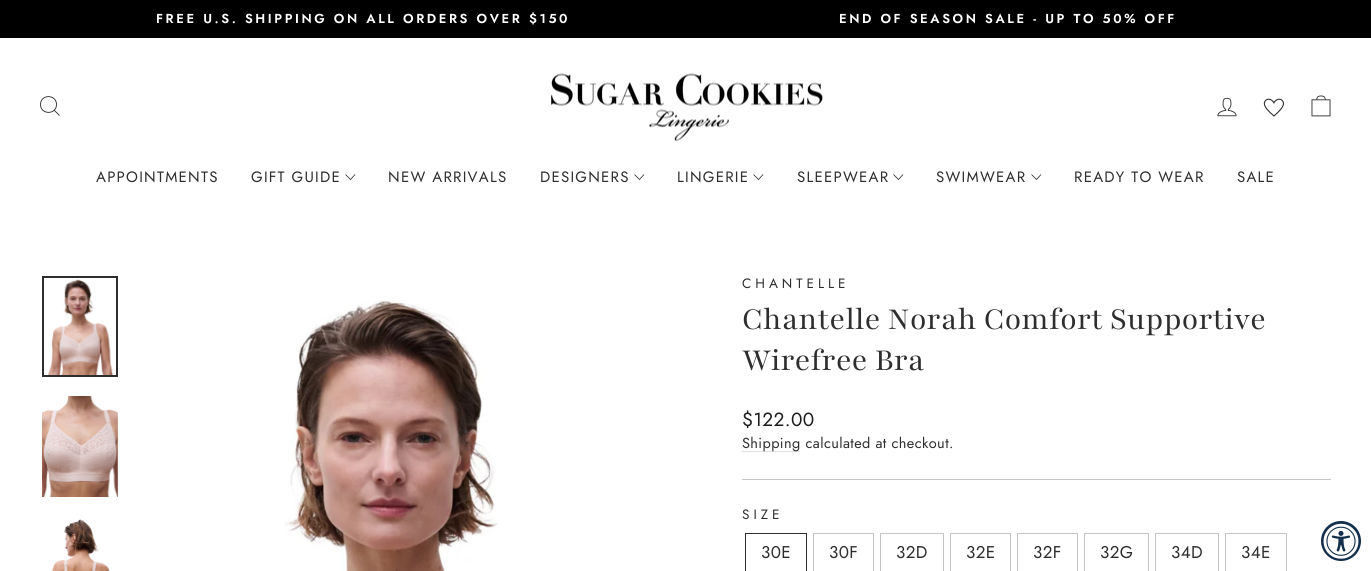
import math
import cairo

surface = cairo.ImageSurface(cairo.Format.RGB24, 1371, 571)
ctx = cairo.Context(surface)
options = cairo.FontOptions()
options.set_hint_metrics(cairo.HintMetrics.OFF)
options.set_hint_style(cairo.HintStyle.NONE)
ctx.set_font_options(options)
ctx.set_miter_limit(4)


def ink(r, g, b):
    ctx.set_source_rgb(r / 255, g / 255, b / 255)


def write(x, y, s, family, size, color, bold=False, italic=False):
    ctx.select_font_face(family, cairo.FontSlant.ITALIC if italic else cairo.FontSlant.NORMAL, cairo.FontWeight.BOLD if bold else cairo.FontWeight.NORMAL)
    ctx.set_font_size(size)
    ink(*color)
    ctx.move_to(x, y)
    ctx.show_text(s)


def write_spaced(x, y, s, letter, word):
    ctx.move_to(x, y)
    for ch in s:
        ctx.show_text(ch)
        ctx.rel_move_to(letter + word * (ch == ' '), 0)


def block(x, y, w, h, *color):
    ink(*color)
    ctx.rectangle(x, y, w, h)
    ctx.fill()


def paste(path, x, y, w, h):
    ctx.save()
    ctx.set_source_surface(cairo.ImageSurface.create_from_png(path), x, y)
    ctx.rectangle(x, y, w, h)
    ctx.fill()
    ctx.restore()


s1 = dict(family="Playfair", size=34, color=(46, 46, 46))

ink(255, 255, 255)
ctx.paint()
block(0, 0, 1371, 38, 0, 0, 0)
ctx.select_font_face("Jost SemiBold")
ctx.set_font_size(13)
ink(255, 255, 255)
write_spaced(156, 23, "FREE U.S. SHIPPING ON ALL ORDERS OVER $150", 2.6, 0)
write_spaced(839, 23, "END OF SEASON SALE - UP TO 50% OFF", 2.6, 0)
ctx.new_path()
ctx.move_to(56.5, 104.5)
ctx.curve_to(56.5, 115, 40.5, 115, 40.5, 104.5)
ctx.curve_to(40.5, 94, 56.5, 94, 56.5, 104.5)
ctx.close_path()
ctx.move_to(59.5, 115.5)
ctx.line_to(54.5, 110.5)
ink(46, 46, 46)
ctx.set_line_width(0.9)
ctx.stroke()
paste("pic1.png", 551, 73, 272, 69)
paste("pic2.png", 1217, 97, 20, 20)
paste("pic3.png", 1263, 98, 21, 19)
paste("pic4.png", 1311, 95, 20, 22)
ctx.select_font_face("Jost")
ctx.set_font_size(15)
write_spaced(96, 182, "APPOINTMENTS", 1.25, 0)
write_spaced(251, 182, "GIFT GUIDE", 1.25, 0)
ctx.new_path()
ctx.move_to(345.5, 174.5)
ctx.line_to(350.5, 179.5)
ctx.line_to(355, 174.5)
ctx.set_line_width(0.8)
ctx.stroke()
write_spaced(388, 182, "NEW ARRIVALS", 1.25, 0)
write_spaced(540, 182, "DESIGNERS", 1.25, 0)
ctx.new_path()
ctx.move_to(634.5, 174.5)
ctx.line_to(639.5, 179.5)
ctx.line_to(644, 174.5)
ctx.stroke()
write_spaced(677, 182, "LINGERIE", 1.25, 0)
ctx.new_path()
ctx.move_to(753.5, 174.5)
ctx.line_to(758.5, 179.5)
ctx.line_to(763, 174.5)
ctx.stroke()
write_spaced(797, 182, "SLEEPWEAR", 1.25, 0)
ctx.new_path()
ctx.move_to(893.5, 174.5)
ctx.line_to(898.5, 179.5)
ctx.line_to(903, 174.5)
ctx.stroke()
write_spaced(936, 182, "SWIMWEAR", 1.25, 0)
ctx.new_path()
ctx.move_to(1031.5, 174.5)
ctx.line_to(1036.5, 179.5)
ctx.line_to(1041, 174.5)
ctx.stroke()
write_spaced(1074, 182, "READY TO WEAR", 1.25, 0)
write_spaced(1237, 182, "SALE", 1.25, 0)
paste("pic5.png", 47, 279, 67, 96)
ctx.rectangle(43, 277, 74, 99)
ctx.set_line_width(2)
ctx.stroke()
paste("pic6.png", 42, 396, 76, 101)
paste("pic7.png", 52, 519, 58, 52)
paste("pic8.png", 284, 300, 214, 271)
ctx.set_font_size(13.5)
write_spaced(742, 288, "CHANTELLE", 4, 0)
write(742, 329, "Chantelle Norah Comfort Supportive", **s1)
write(742, 370, "Wirefree Bra", **s1)
ctx.select_font_face("Jost")
ctx.set_font_size(19)
ink(28, 29, 29)
write_spaced(742, 426, "$122.00", 0.4, 0)
block(742, 451, 58, 1, 224, 224, 224)
ctx.set_font_size(14.5)
ink(46, 46, 46)
write_spaced(742, 448, "Shipping calculated at checkout.", 0.4, 0)
block(742, 479, 589, 1, 198, 198, 198)
ctx.set_font_size(13.5)
ink(46, 46, 46)
write_spaced(742, 519, "SIZE", 4, 0)
ctx.rectangle(745.5, 533.5, 61, 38)
ctx.set_line_width(1)
ctx.stroke()
ctx.set_font_size(17)
write_spaced(761, 558, "30E", 0.4, 0)
ctx.rectangle(813.5, 533.5, 60, 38)
ink(198, 198, 198)
ctx.stroke()
ink(46, 46, 46)
write_spaced(829, 558, "30F", 0.4, 0)
ctx.rectangle(880.5, 533.5, 63, 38)
ink(198, 198, 198)
ctx.stroke()
ink(46, 46, 46)
write_spaced(896, 558, "32D", 0.4, 0)
ctx.rectangle(950.5, 533.5, 60, 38)
ink(198, 198, 198)
ctx.stroke()
ink(46, 46, 46)
write_spaced(966, 558, "32E", 0.4, 0)
ctx.rectangle(1017.5, 533.5, 60, 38)
ink(198, 198, 198)
ctx.stroke()
ink(46, 46, 46)
write_spaced(1033, 558, "32F", 0.4, 0)
ctx.rectangle(1084.5, 533.5, 64, 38)
ink(198, 198, 198)
ctx.stroke()
ink(46, 46, 46)
write_spaced(1100, 558, "32G", 0.4, 0)
ctx.rectangle(1155.5, 533.5, 63, 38)
ink(198, 198, 198)
ctx.stroke()
ink(46, 46, 46)
write_spaced(1171, 558, "34D", 0.4, 0)
ctx.rectangle(1225.5, 533.5, 61, 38)
ink(198, 198, 198)
ctx.stroke()
ink(46, 46, 46)
write_spaced(1241, 558, "34E", 0.4, 0)
ink(19, 47, 75)
ctx.new_path()
ctx.arc(1341, 541, 20, 0, 2 * math.pi)
ctx.fill()
paste("pic9.png", 1323, 523, 36, 36)
surface.write_to_png("screenshot.png")
